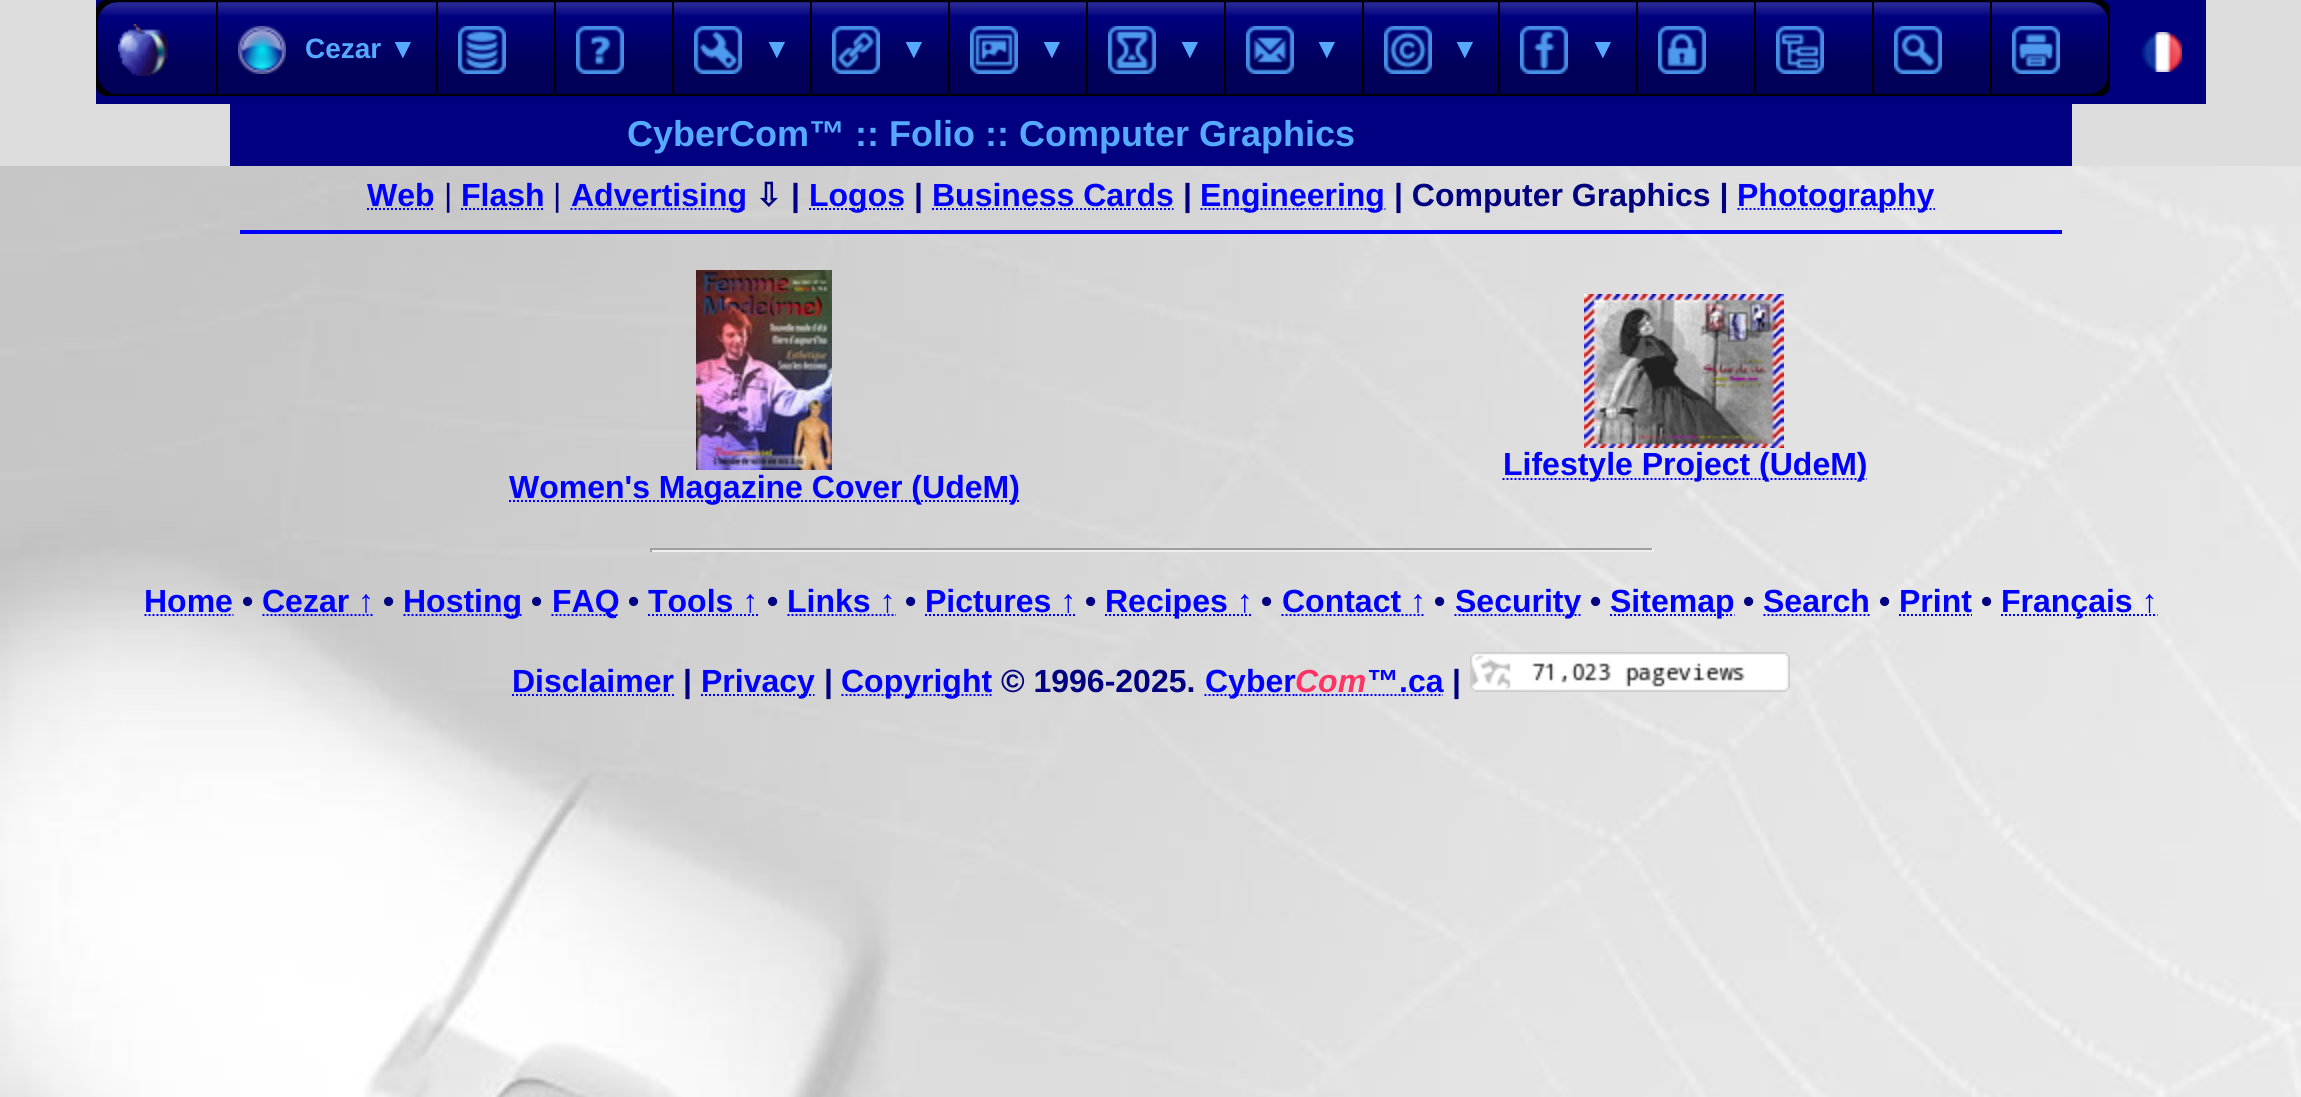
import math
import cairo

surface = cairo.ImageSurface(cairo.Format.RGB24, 2301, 1097)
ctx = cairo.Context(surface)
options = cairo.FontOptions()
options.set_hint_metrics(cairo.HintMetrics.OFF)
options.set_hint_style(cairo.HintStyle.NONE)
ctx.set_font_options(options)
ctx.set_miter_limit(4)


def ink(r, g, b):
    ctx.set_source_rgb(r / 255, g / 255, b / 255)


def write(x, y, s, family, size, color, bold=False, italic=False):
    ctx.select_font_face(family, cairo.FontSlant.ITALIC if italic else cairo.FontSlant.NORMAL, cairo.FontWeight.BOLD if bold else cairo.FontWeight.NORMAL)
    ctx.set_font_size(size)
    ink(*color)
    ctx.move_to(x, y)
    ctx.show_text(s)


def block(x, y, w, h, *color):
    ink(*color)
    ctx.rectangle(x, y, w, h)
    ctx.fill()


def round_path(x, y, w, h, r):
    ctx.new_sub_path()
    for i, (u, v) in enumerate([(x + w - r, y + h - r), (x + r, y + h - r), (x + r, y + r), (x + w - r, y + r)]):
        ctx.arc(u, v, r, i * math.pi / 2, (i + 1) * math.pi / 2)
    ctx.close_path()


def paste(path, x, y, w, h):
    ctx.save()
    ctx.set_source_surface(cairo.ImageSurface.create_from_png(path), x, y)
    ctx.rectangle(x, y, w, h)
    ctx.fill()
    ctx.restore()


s1 = dict(family="Liberation Sans", size=28, color=(85, 170, 255), bold=True)
s2 = dict(family="Liberation Sans", size=36, color=(85, 170, 255), bold=True)
s3 = dict(family="Liberation Sans", size=32, color=(0, 0, 255), bold=True)
s4 = dict(family="Liberation Sans", size=32, color=(0, 0, 128))
s5 = dict(family="DejaVu Sans", size=32, color=(0, 0, 128), bold=True)
s6 = dict(family="Liberation Sans", size=32, color=(0, 0, 128), bold=True)
s7 = dict(family="Liberation Sans", size=32, color=(255, 51, 102), bold=True, italic=True)

ink(255, 255, 255)
ctx.paint()
paste("pic1.png", 0, 166, 2301, 931)
block(0, 0, 2301, 166, 221, 221, 221)
block(96, 0, 2110, 104, 0, 0, 127)
ink(0, 0, 0)
round_path(96, 0, 2014, 96, 10)
ctx.fill()
ink(0, 0, 127)
ctx.new_path()
ctx.move_to(118, 2)
ctx.line_to(216, 2)
ctx.line_to(216, 94)
ctx.line_to(118, 94)
ctx.curve_to(107, 94, 98, 85, 98, 74)
ctx.line_to(98, 22)
ctx.curve_to(98, 11, 107, 2, 118, 2)
ctx.close_path()
ctx.fill()
paste("pic2.png", 98, 2, 118, 92)
paste("pic3.png", 118, 24, 50, 52)
block(218, 2, 218, 92, 0, 0, 127)
paste("pic4.png", 218, 2, 218, 92)
paste("pic5.png", 238, 26, 48, 48)
write(305, 58, "Cezar ▼", **s1)
block(438, 2, 116, 92, 0, 0, 127)
paste("pic6.png", 438, 2, 116, 92)
paste("pic7.png", 458, 26, 48, 48)
block(556, 2, 116, 92, 0, 0, 127)
paste("pic6.png", 556, 2, 116, 92)
paste("pic8.png", 576, 26, 48, 48)
block(674, 2, 136, 92, 0, 0, 127)
paste("pic9.png", 674, 2, 136, 92)
paste("pic10.png", 694, 26, 48, 48)
write(763, 58, "▼", **s1)
block(812, 2, 136, 92, 0, 0, 127)
paste("pic9.png", 812, 2, 136, 92)
paste("pic11.png", 832, 26, 48, 48)
write(900, 58, "▼", **s1)
block(950, 2, 136, 92, 0, 0, 127)
paste("pic9.png", 950, 2, 136, 92)
paste("pic12.png", 970, 26, 48, 48)
write(1038, 58, "▼", **s1)
block(1088, 2, 136, 92, 0, 0, 127)
paste("pic9.png", 1088, 2, 136, 92)
paste("pic13.png", 1108, 26, 48, 48)
write(1176, 58, "▼", **s1)
block(1226, 2, 136, 92, 0, 0, 127)
paste("pic9.png", 1226, 2, 136, 92)
paste("pic14.png", 1246, 26, 48, 48)
write(1313, 58, "▼", **s1)
block(1364, 2, 134, 92, 0, 0, 127)
paste("pic15.png", 1364, 2, 134, 92)
paste("pic16.png", 1384, 26, 48, 48)
write(1451, 58, "▼", **s1)
block(1500, 2, 136, 92, 0, 0, 127)
paste("pic9.png", 1500, 2, 136, 92)
paste("pic17.png", 1520, 26, 48, 48)
write(1589, 58, "▼", **s1)
block(1638, 2, 116, 92, 0, 0, 127)
paste("pic6.png", 1638, 2, 116, 92)
paste("pic18.png", 1658, 26, 48, 48)
block(1756, 2, 116, 92, 0, 0, 127)
paste("pic6.png", 1756, 2, 116, 92)
paste("pic19.png", 1776, 26, 48, 48)
block(1874, 2, 116, 92, 0, 0, 127)
paste("pic6.png", 1874, 2, 116, 92)
paste("pic20.png", 1894, 26, 48, 48)
ctx.new_path()
ctx.move_to(1992, 2)
ctx.line_to(2088, 2)
ctx.curve_to(2099, 2, 2108, 11, 2108, 22)
ctx.line_to(2108, 74)
ctx.curve_to(2108, 85, 2099, 94, 2088, 94)
ctx.line_to(1992, 94)
ctx.close_path()
ctx.fill()
paste("pic21.png", 1992, 2, 116, 92)
paste("pic22.png", 2012, 26, 48, 48)
paste("pic23.png", 2142, 32, 40, 40)
block(230, 104, 1842, 62, 0, 0, 128)
write(627, 146, "CyberCom™ :: Folio :: Computer Graphics", **s2)
write(367, 206, "Web", **s3)
ctx.new_path()
ctx.move_to(367, 209)
ctx.line_to(434.5, 209)
ctx.set_dash([2, 2])
ctx.stroke()
write(444, 206, "|", **s4)
write(461, 206, "Flash", **s3)
ctx.new_path()
ctx.move_to(461, 209)
ctx.line_to(544.5, 209)
ctx.stroke()
write(553, 206, "|", **s4)
ctx.new_path()
ctx.move_to(570.5, 209)
ctx.line_to(746.5, 209)
ink(0, 0, 255)
ctx.stroke()
write(571, 206, "Advertising", **s3)
write(755, 206, "⇩", **s5)
write(791, 206, "|", **s6)
ctx.new_path()
ctx.move_to(809, 209)
ctx.line_to(905, 209)
ink(0, 0, 255)
ctx.stroke()
write(809, 206, "Logos", **s3)
write(914, 206, "|", **s6)
write(932, 206, "Business Cards", **s3)
ctx.new_path()
ctx.move_to(932, 209)
ctx.line_to(1173.5, 209)
ctx.stroke()
write(1183, 206, "|", **s6)
ctx.new_path()
ctx.move_to(1200.5, 209)
ctx.line_to(1385.5, 209)
ink(0, 0, 255)
ctx.stroke()
write(1200, 206, "Engineering", **s3)
write(1394, 206, "| Computer Graphics |", **s6)
ctx.new_path()
ctx.move_to(1737.5, 209)
ctx.line_to(1935, 209)
ink(0, 0, 255)
ctx.stroke()
write(1737, 206, "Photography", **s3)
block(240, 230, 1822, 4, 0, 0, 255)
paste("pic24.png", 1584, 294, 200, 154)
ctx.new_path()
ctx.move_to(1502.5, 479)
ctx.line_to(1867, 479)
ctx.stroke()
write(1503, 475, "Lifestyle Project (UdeM)", **s3)
paste("pic25.png", 696, 270, 136, 200)
ctx.new_path()
ctx.move_to(509, 501)
ctx.line_to(1019.5, 501)
ctx.stroke()
write(509, 498, "Women's Magazine Cover (UdeM)", **s3)
block(650, 548, 1004, 2, 159, 159, 159)
block(1652, 548, 2, 4, 238, 238, 238)
block(650, 550, 1004, 2, 238, 238, 238)
block(650, 548, 2, 4, 159, 159, 159)
write(144, 612, "Home", **s3)
ctx.new_path()
ctx.move_to(144.5, 615)
ctx.line_to(233.5, 615)
ctx.stroke()
write(242, 612, "•", **s6)
write(262, 612, "Cezar ↑", **s3)
ctx.new_path()
ctx.move_to(262.5, 615)
ctx.line_to(374.5, 615)
ctx.stroke()
write(383, 612, "•", **s6)
ctx.new_path()
ctx.move_to(403.5, 615)
ctx.line_to(522.5, 615)
ink(0, 0, 255)
ctx.stroke()
write(403, 612, "Hosting", **s3)
write(531, 612, "•", **s6)
ctx.new_path()
ctx.move_to(551.5, 615)
ctx.line_to(619, 615)
ink(0, 0, 255)
ctx.stroke()
write(552, 612, "FAQ", **s3)
write(628, 612, "•", **s6)
write(648, 612, "Tools ↑", **s3)
ctx.new_path()
ctx.move_to(648, 615)
ctx.line_to(758.5, 615)
ctx.stroke()
write(767, 612, "•", **s6)
write(787, 612, "Links ↑", **s3)
ctx.new_path()
ctx.move_to(787.5, 615)
ctx.line_to(896, 615)
ctx.stroke()
write(905, 612, "•", **s6)
write(925, 612, "Pictures ↑", **s3)
ctx.new_path()
ctx.move_to(925, 615)
ctx.line_to(1076, 615)
ctx.stroke()
write(1085, 612, "•", **s6)
ctx.new_path()
ctx.move_to(1105, 615)
ctx.line_to(1252.5, 615)
ink(0, 0, 255)
ctx.stroke()
write(1105, 612, "Recipes ↑", **s3)
write(1261, 612, "•", **s6)
write(1282, 612, "Contact ↑", **s3)
ctx.new_path()
ctx.move_to(1281.5, 615)
ctx.line_to(1425.5, 615)
ctx.stroke()
write(1434, 612, "•", **s6)
ctx.new_path()
ctx.move_to(1454.5, 615)
ctx.line_to(1581, 615)
ink(0, 0, 255)
ctx.stroke()
write(1455, 612, "Security", **s3)
write(1590, 612, "•", **s6)
ctx.new_path()
ctx.move_to(1610, 615)
ctx.line_to(1734.5, 615)
ink(0, 0, 255)
ctx.stroke()
write(1610, 612, "Sitemap", **s3)
write(1743, 612, "•", **s6)
write(1763, 612, "Search", **s3)
ctx.new_path()
ctx.move_to(1763.5, 615)
ctx.line_to(1870, 615)
ctx.stroke()
write(1879, 612, "•", **s6)
write(1899, 612, "Print", **s3)
ctx.new_path()
ctx.move_to(1899, 615)
ctx.line_to(1972, 615)
ctx.stroke()
write(1981, 612, "•", **s6)
ctx.new_path()
ctx.move_to(2001, 615)
ctx.line_to(2157.5, 615)
ink(0, 0, 255)
ctx.stroke()
write(2001, 612, "Français ↑", **s3)
write(512, 692, "Disclaimer", **s3)
ctx.new_path()
ctx.move_to(512, 695)
ctx.line_to(674, 695)
ctx.stroke()
write(683, 692, "|", **s6)
ctx.new_path()
ctx.move_to(701, 695)
ctx.line_to(814.5, 695)
ink(0, 0, 255)
ctx.stroke()
write(701, 692, "Privacy", **s3)
write(824, 692, "|", **s6)
ctx.new_path()
ctx.move_to(841.5, 695)
ctx.line_to(992.5, 695)
ink(0, 0, 255)
ctx.stroke()
write(841, 692, "Copyright", **s3)
write(1001, 692, "© 1996-2025.", **s6)
ctx.new_path()
ctx.move_to(1204.5, 695)
ctx.line_to(1295.5, 695)
ink(0, 0, 255)
ctx.stroke()
write(1205, 692, "Cyber", **s3)
ctx.new_path()
ctx.move_to(1295.5, 695)
ctx.line_to(1366.5, 695)
ctx.stroke()
write(1295, 692, "Com", **s7)
write(1367, 692, "™.ca", **s3)
ctx.new_path()
ctx.move_to(1366.5, 695)
ctx.line_to(1443, 695)
ctx.stroke()
write(1452, 692, "|", **s6)
paste("pic26.png", 1470, 652, 320, 40)
surface.write_to_png("screenshot.png")
